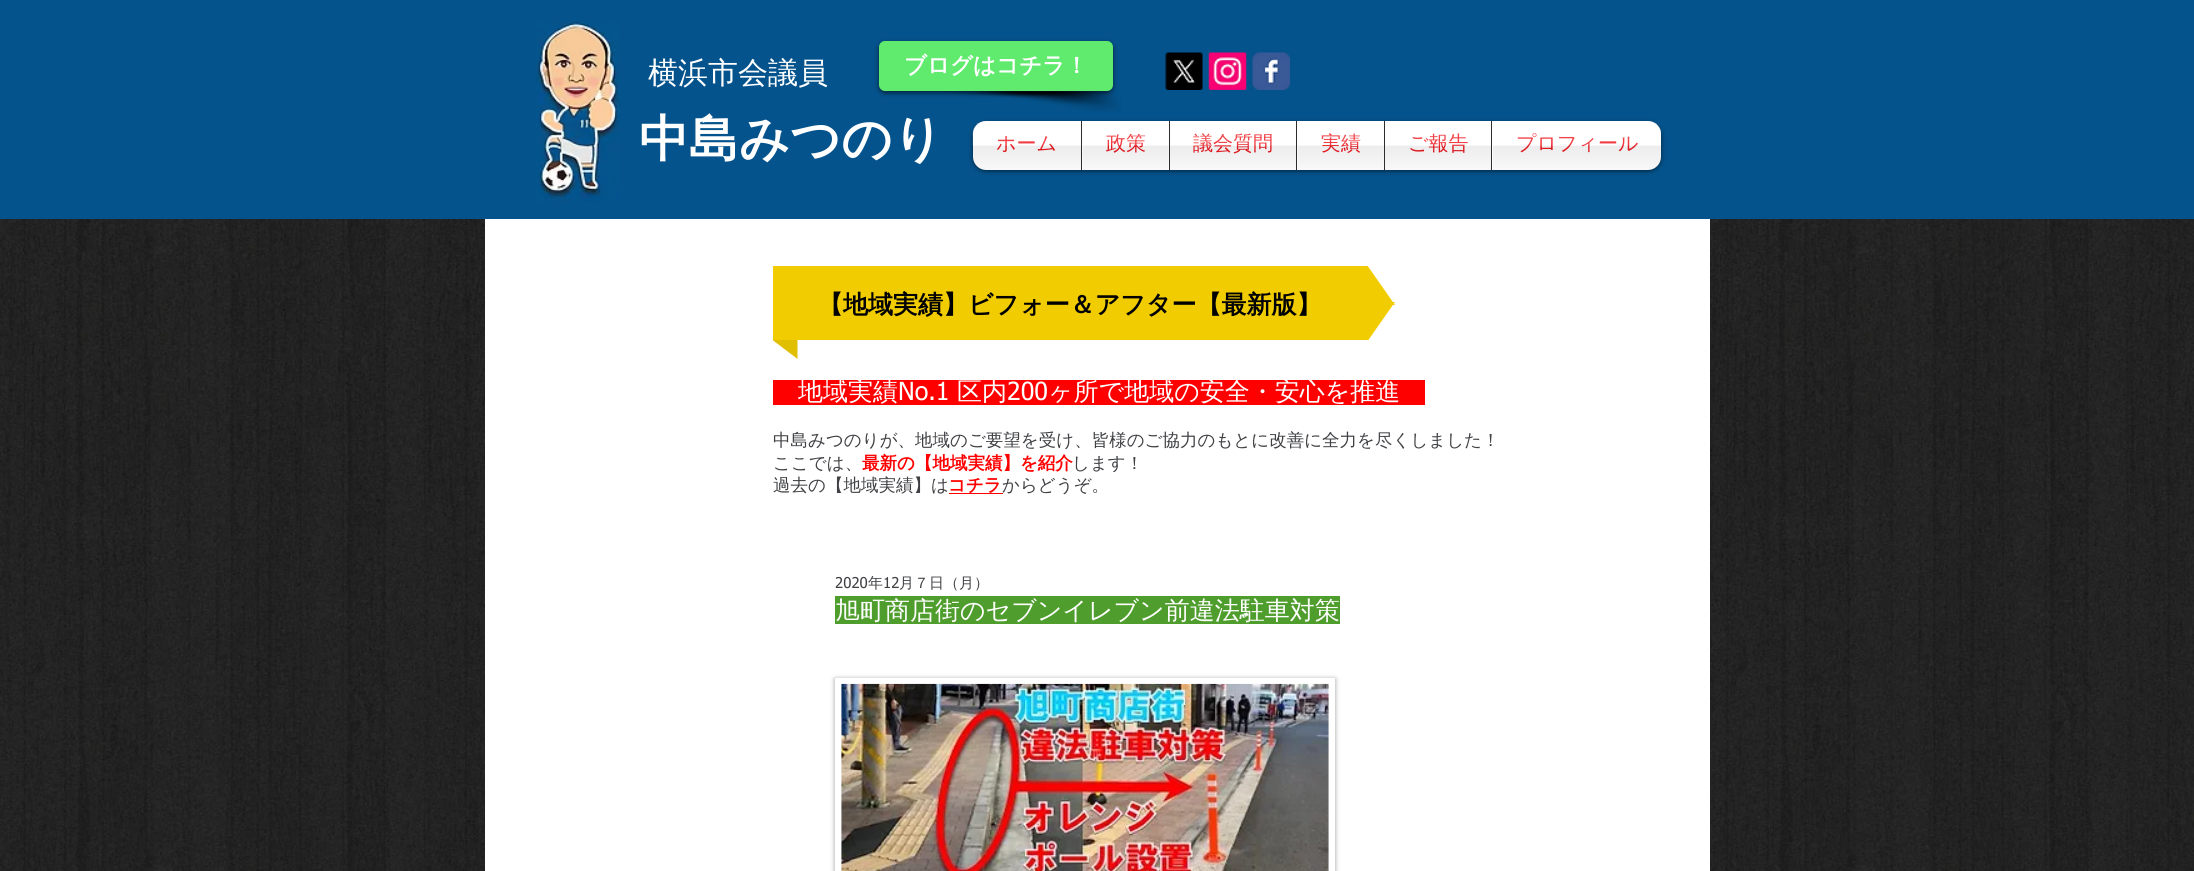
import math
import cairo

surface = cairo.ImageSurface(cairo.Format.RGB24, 2194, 871)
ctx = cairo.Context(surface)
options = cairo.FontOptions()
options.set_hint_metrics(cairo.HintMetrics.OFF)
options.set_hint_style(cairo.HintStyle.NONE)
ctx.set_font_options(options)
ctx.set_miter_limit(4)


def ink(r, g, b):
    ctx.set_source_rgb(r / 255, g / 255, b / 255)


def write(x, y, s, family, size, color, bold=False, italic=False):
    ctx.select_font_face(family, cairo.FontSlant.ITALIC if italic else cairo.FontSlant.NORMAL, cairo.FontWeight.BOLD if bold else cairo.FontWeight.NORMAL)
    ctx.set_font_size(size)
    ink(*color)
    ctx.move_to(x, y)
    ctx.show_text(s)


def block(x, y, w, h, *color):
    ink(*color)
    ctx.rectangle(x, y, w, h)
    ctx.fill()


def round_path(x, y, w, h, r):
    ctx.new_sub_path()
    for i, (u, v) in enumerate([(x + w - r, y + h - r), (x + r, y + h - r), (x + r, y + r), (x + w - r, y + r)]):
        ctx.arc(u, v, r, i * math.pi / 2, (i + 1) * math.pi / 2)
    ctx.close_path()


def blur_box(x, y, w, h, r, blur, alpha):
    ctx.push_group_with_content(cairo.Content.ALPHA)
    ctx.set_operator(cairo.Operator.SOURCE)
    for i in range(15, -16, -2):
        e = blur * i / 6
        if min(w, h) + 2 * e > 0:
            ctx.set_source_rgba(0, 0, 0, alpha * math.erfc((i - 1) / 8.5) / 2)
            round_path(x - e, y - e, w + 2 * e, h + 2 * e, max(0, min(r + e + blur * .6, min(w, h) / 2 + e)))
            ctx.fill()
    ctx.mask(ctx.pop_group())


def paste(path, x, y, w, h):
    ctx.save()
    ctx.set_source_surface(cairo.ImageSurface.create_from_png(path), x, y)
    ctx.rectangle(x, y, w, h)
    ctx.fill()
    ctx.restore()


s1 = dict(family="WenQuanYi Zen Hei Medium", size=30, color=(255, 255, 255))
s2 = dict(family="WenQuanYi Zen Hei", size=22.5, color=(255, 255, 255), bold=True)
s3 = dict(family="WenQuanYi Zen Hei", size=50, color=(255, 255, 255), bold=True)
s4 = dict(family="WenQuanYi Zen Hei Medium", size=20, color=(237, 28, 36))
s5 = dict(family="WenQuanYi Zen Hei", size=25, color=(0, 0, 0), bold=True)
s6 = dict(family="WenQuanYi Zen Hei Medium", size=25, color=(255, 255, 255))
s7 = dict(family="tahoma", size=25, color=(255, 255, 255))
s8 = dict(family="WenQuanYi Zen Hei Medium", size=17.5, color=(64, 65, 68))
s9 = dict(family="WenQuanYi Zen Hei", size=17.5, color=(255, 0, 0), bold=True)
s10 = dict(family="tahoma", size=15, color=(64, 65, 68))
s11 = dict(family="WenQuanYi Zen Hei Medium", size=15, color=(64, 65, 68))

ink(255, 255, 255)
ctx.paint()
block(0, 0, 2194, 219, 4, 83, 140)
paste("pic1.png", 536, 22, 84, 180)
write(648, 83, "横浜市会議員", **s1)
paste("pic2.png", 944, 91, 177, 21)
ink(0, 0, 0)
blur_box(879, 43, 234, 50, 6, 2.5, 0.6)
ink(96, 234, 110)
round_path(879, 41, 234, 50, 6)
ctx.fill()
write(904, 73, "ブログはコチラ！", **s2)
paste("pic3.png", 1165, 52, 38, 38)
paste("pic4.png", 1208, 52, 39, 38)
paste("pic5.png", 1252, 52, 38, 38)
write(639, 156, "中島みつのり", **s3)
ink(0, 0, 0)
blur_box(973, 123, 688, 48, 13, 2.5, 0.6)
paste("pic6.png", 972, 121, 689, 49)
ink(255, 255, 255)
ctx.new_path()
ctx.move_to(986, 121)
ctx.line_to(1081, 121)
ctx.line_to(1081, 170)
ctx.line_to(986, 170)
ctx.curve_to(979, 170, 973, 164, 973, 157)
ctx.line_to(973, 134)
ctx.curve_to(973, 127, 979, 121, 986, 121)
ctx.close_path()
ctx.fill()
write(996, 150, "ホーム", **s4)
paste("pic7.png", 972, 121, 109, 49)
block(1082, 121, 87, 49, 255, 255, 255)
block(1081, 121, 1, 49, 45, 45, 47)
write(1106, 150, "政策", **s4)
paste("pic8.png", 1082, 133, 87, 37)
block(1170, 121, 126, 49, 255, 255, 255)
block(1169, 121, 1, 49, 45, 45, 47)
write(1193, 150, "議会質問", **s4)
paste("pic9.png", 1170, 133, 126, 37)
block(1297, 121, 87, 49, 255, 255, 255)
block(1296, 121, 1, 49, 45, 45, 47)
write(1321, 150, "実績", **s4)
paste("pic10.png", 1297, 133, 87, 37)
block(1385, 121, 106, 49, 255, 255, 255)
block(1384, 121, 1, 49, 45, 45, 47)
write(1408, 150, "ご報告", **s4)
paste("pic11.png", 1385, 133, 106, 37)
ink(255, 255, 255)
ctx.new_path()
ctx.move_to(1491, 121)
ctx.line_to(1648, 121)
ctx.curve_to(1655, 121, 1661, 127, 1661, 134)
ctx.line_to(1661, 157)
ctx.curve_to(1661, 164, 1655, 170, 1648, 170)
ctx.line_to(1491, 170)
ctx.close_path()
ctx.fill()
block(1491, 121, 1, 49, 45, 45, 47)
write(1516, 150, "プロフィール", **s4)
paste("pic12.png", 1493, 121, 168, 49)
paste("pic14.png", 0, 219, 2194, 652)
block(485, 219, 1225, 652, 255, 255, 255)
ctx.save()
ctx.rectangle(773, 266, 622, 74)
ctx.clip()
ink(241, 204, 1)
ctx.new_path()
ctx.move_to(335, 302)
ctx.line_to(1395, 302)
ctx.line_to(958, 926)
ctx.line_to(335, 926)
ctx.close_path()
ctx.fill()
ctx.new_path()
ctx.move_to(1395, 305)
ctx.line_to(335, 305)
ctx.line_to(335, -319)
ctx.line_to(958, -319)
ctx.close_path()
ctx.fill()
ctx.restore()
write(818, 313, "【地域実績】ビフォー＆アフター【最新版】", **s5)
ink(224, 190, 0)
ctx.new_path()
ctx.move_to(797.5, 340)
ctx.line_to(797.5, 359)
ctx.line_to(772.5, 340)
ctx.close_path()
ctx.fill()
block(773, 380, 652, 25, 255, 0, 0)
write(798, 400, "地域実績", **s6)
write(898, 400, "No.1", **s7)
write(957, 400, "区内", **s6)
write(1007, 400, "200", **s7)
write(1048, 400, "ヶ所で地域の安全・安心を推進", **s6)
write(773, 446, "中島みつのりが、地域のご要望を受け、皆様のご協力のもとに改善に全力を尽くしました！", **s8)
write(773, 469, "ここでは、", **s8)
write(862, 469, "最新の【地域実績】を紹介", **s9)
write(1072, 469, "します！", **s8)
write(773, 491, "過去の【地域実績】は", **s8)
block(949, 493, 54, 1, 255, 0, 0)
write(948, 491, "コチラ", **s9)
write(1002, 491, "からどうぞ。", **s8)
write(835, 588, "2020", **s10)
write(868, 588, "年", **s11)
write(883, 588, "12", **s10)
write(899, 588, "月７日（月）", **s11)
block(835, 596, 505, 28, 79, 158, 45)
write(835, 619, "旭町商店街のセブンイレブン前違法駐車対策", **s6)
ctx.save()
ctx.set_fill_rule(cairo.FillRule.EVEN_ODD)
ctx.new_path()
ctx.move_to(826, 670)
ctx.line_to(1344, 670)
ctx.line_to(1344, 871)
ctx.line_to(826, 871)
ctx.close_path()
ctx.move_to(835, 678)
ctx.line_to(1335, 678)
ctx.line_to(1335, 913)
ctx.line_to(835, 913)
ctx.close_path()
ctx.clip()
ink(0, 0, 0)
blur_box(835, 679, 500, 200, 0, 2.5, 0.4)
ctx.restore()
paste("pic13.png", 841, 683, 488, 188)
surface.write_to_png("screenshot.png")
